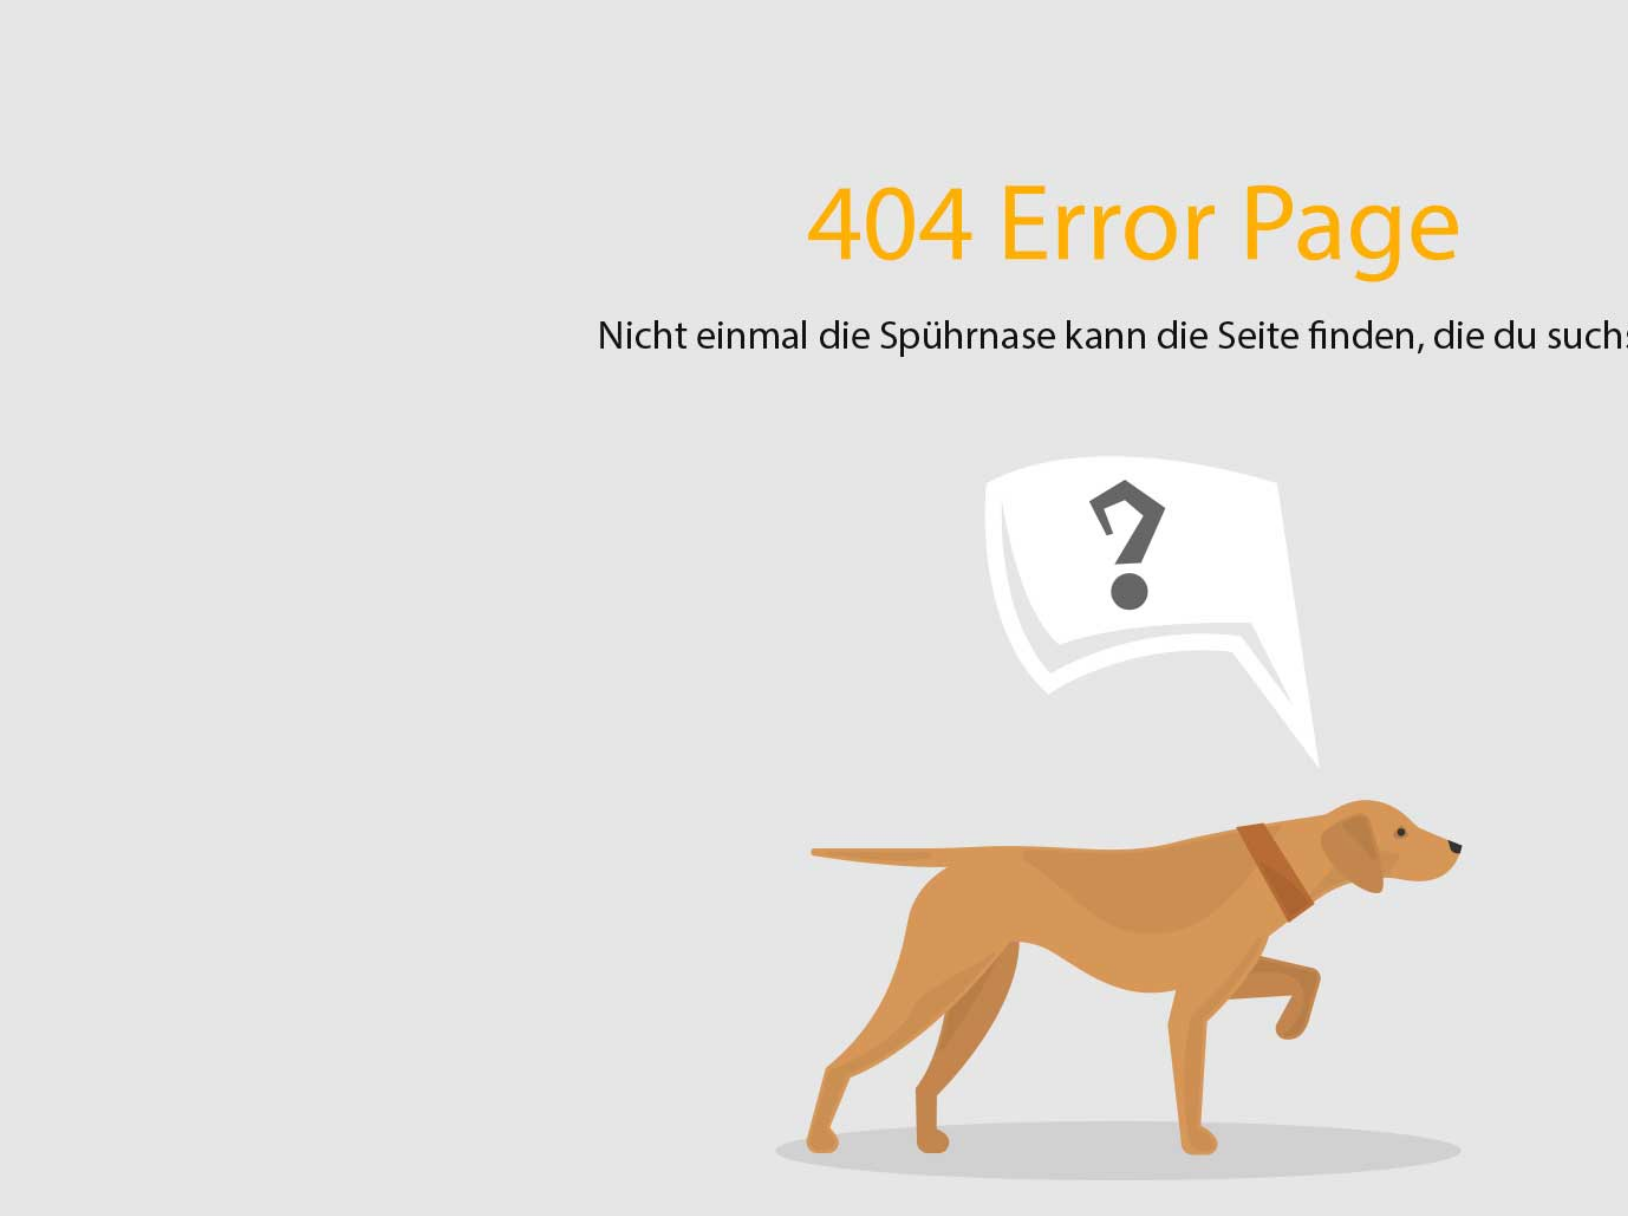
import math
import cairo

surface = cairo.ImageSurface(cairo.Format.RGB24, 1628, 1216)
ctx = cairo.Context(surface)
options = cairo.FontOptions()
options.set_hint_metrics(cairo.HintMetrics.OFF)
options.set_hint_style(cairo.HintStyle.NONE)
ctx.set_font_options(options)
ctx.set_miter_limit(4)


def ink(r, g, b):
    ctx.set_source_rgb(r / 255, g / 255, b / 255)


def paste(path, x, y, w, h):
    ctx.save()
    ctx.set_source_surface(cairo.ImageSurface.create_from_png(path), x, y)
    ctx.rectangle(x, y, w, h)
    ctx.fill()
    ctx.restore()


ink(255, 255, 255)
ctx.paint()
paste("pic1.png", 0, 0, 1628, 1216)
surface.write_to_png("screenshot.png")
